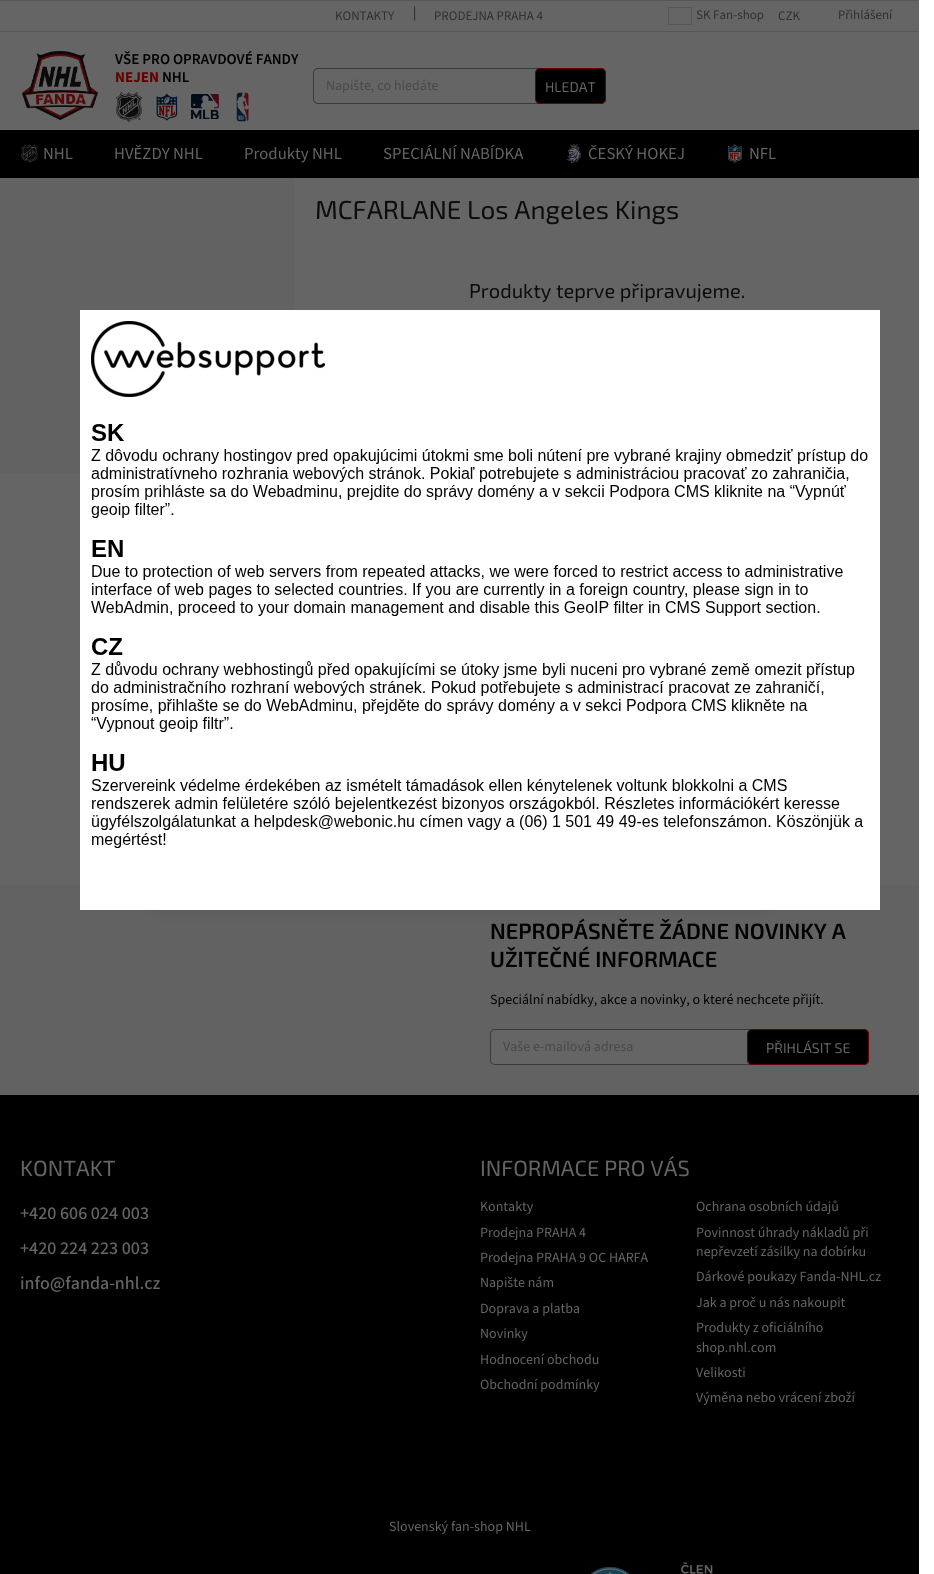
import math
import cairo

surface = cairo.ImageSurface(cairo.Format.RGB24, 934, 1574)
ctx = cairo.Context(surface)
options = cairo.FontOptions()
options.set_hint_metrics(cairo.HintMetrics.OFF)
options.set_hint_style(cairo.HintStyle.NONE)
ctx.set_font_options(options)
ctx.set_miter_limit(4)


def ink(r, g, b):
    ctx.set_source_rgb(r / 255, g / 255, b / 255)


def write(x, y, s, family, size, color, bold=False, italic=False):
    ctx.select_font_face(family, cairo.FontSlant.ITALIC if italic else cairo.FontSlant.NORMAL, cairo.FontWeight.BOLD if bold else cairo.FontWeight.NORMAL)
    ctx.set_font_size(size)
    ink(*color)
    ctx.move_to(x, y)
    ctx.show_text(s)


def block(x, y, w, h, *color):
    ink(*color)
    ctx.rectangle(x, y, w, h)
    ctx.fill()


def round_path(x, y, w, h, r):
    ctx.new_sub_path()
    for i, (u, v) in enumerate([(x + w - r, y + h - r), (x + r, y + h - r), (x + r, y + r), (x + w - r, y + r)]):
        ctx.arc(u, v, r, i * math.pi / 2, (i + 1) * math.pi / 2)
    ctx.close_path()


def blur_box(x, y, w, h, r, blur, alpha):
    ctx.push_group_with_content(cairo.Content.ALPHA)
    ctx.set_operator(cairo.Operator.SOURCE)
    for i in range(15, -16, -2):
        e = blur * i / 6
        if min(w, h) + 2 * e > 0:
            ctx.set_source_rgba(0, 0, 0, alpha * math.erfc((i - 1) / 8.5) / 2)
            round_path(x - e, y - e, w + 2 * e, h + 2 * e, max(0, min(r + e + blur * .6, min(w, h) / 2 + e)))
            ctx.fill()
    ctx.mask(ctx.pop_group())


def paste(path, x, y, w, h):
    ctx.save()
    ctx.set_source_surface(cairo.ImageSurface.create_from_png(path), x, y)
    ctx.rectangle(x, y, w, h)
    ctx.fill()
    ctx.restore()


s1 = dict(family="Source Sans 3", size=13, color=(47, 47, 47))
s2 = dict(family="Source Sans 3", size=14, color=(31, 31, 31))
s3 = dict(family="Source Sans 3 SemiBold", size=15, color=(0, 0, 0))
s4 = dict(family="Source Sans 3", size=15, color=(101, 0, 0), bold=True)
s5 = dict(family="Source Sans 3", size=14, color=(72, 72, 72))
s6 = dict(family="Exo 2", size=14, color=(101, 101, 101))
s7 = dict(family="Source Sans 3", size=16.75, color=(101, 101, 101))
s8 = dict(family="Exo 2", size=26, color=(12, 12, 12))
s9 = dict(family="Exo 2", size=20, color=(12, 12, 12))
s10 = dict(family="Exo 2 SemiBold", size=22, color=(0, 0, 0))
s11 = dict(family="Source Sans 3", size=14, color=(0, 0, 0))
s12 = dict(family="Exo 2", size=22, color=(101, 101, 101))
s13 = dict(family="Source Sans 3 Medium", size=18, color=(101, 101, 101))
s14 = dict(family="Source Sans 3", size=14, color=(101, 101, 101))

ink(255, 255, 255)
ctx.paint()
block(0, 1, 919, 884, 101, 101, 101)
block(0, 0, 919, 1, 87, 87, 87)
block(0, 31, 919, 1, 87, 87, 87)
write(335, 20, "KONTAKTY", **s1)
write(413, 17, "|", **s2)
write(434, 20, "PRODEJNA PRAHA 4", **s1)
ctx.rectangle(668.5, 7.5, 23, 17)
ink(87, 87, 87)
ctx.set_line_width(1)
ctx.stroke()
write(696, 19, "SK Fan-shop", **s1)
write(778, 20, "CZK", **s1)
write(838, 19, "Přihlášení", **s1)
paste("pic1.png", 22, 51, 76, 70)
write(115, 64, "VŠE PRO OPRAVDOVÉ FANDY", **s3)
write(115, 82, "NEJEN", **s4)
write(162, 82, "NHL", **s3)
paste("pic2.png", 116, 92, 26, 30)
paste("pic3.png", 156, 93, 22, 28)
paste("pic4.png", 191, 94, 28, 25)
paste("pic5.png", 236, 92, 13, 30)
round_path(313.5, 68.5, 292, 35, 4.5)
ink(58, 58, 58)
ctx.stroke()
write(326, 90, "Napište, co hledáte", **s5)
ink(0, 0, 0)
round_path(535.5, 68.5, 70, 35, 4.5)
ctx.fill_preserve()
ink(101, 0, 0)
ctx.stroke()
write(545, 92, "HLEDAT", **s6)
block(0, 130, 919, 48, 0, 0, 0)
paste("pic6.png", 21, 144, 17, 19)
write(43, 159, "NHL", **s7)
write(114, 159, "HVĚZDY NHL", **s7)
write(244, 159, "Produkty NHL", **s7)
write(383, 159, "SPECIÁLNÍ NABÍDKA", **s7)
paste("pic7.png", 567, 144, 14, 19)
write(588, 159, "ČESKÝ HOKEJ", **s7)
paste("pic8.png", 728, 144, 14, 19)
write(749, 159, "NFL", **s7)
block(0, 178, 295, 295, 98, 98, 98)
write(315, 219, "MCFARLANE Los Angeles Kings", **s8)
write(469, 298, "Produkty teprve připravujeme.", **s9)
block(0, 1095, 919, 479, 0, 0, 0)
block(0, 885, 919, 210, 98, 98, 98)
write(490, 939, "NEPROPÁSNĚTE ŽÁDNE NOVINKY A", **s10)
write(490, 967, "UŽITEČNÉ INFORMACE", **s10)
write(490, 1004, "Speciální nabídky, akce a novinky, o které nechcete přijít.", **s11)
ink(101, 101, 101)
round_path(490.5, 1029.5, 378, 35, 4.5)
ctx.fill_preserve()
ink(58, 58, 58)
ctx.stroke()
write(503, 1051, "Vaše e-mailová adresa", **s5)
ink(0, 0, 0)
round_path(747.5, 1029.5, 121, 35, 4.5)
ctx.fill_preserve()
ink(101, 0, 0)
ctx.stroke()
write(766, 1053, "PŘIHLÁSIT SE", **s6)
write(20, 1176, "KONTAKT", **s12)
write(20, 1219, "+420 606 024 003", **s13)
write(20, 1254, "+420 224 223 003", **s13)
write(20, 1289, "info@fanda-nhl.cz", **s13)
write(480, 1176, "INFORMACE PRO VÁS", **s12)
write(480, 1211, "Kontakty", **s14)
write(696, 1211, "Ochrana osobních údajů", **s14)
write(480, 1237, "Prodejna PRAHA 4", **s14)
write(696, 1237, "Povinnost úhrady nákladů při", **s14)
write(696, 1256, "nepřevzetí zásilky na dobírku", **s14)
write(480, 1262, "Prodejna PRAHA 9 OC HARFA", **s14)
write(480, 1287, "Napište nám", **s14)
write(696, 1281, "Dárkové poukazy Fanda-NHL.cz", **s14)
write(480, 1313, "Doprava a platba", **s14)
write(696, 1307, "Jak a proč u nás nakoupit", **s14)
write(480, 1338, "Novinky", **s14)
write(696, 1332, "Produkty z oficiálního", **s14)
write(696, 1352, "shop.nhl.com", **s14)
write(480, 1364, "Hodnocení obchodu", **s14)
write(696, 1377, "Velikosti", **s14)
write(480, 1389, "Obchodní podmínky", **s14)
write(696, 1402, "Výměna nebo vrácení zboží", **s14)
write(389, 1531, "Slovenský fan-shop NHL", **s14)
paste("pic9.png", 590, 1567, 39, 7)
paste("pic10.png", 681, 1562, 32, 12)
ink(22, 21, 47)
blur_box(160, 681, 600, 212, 8, 15, 0.5)
paste("pic11.png", 80, 310, 800, 600)
surface.write_to_png("screenshot.png")
